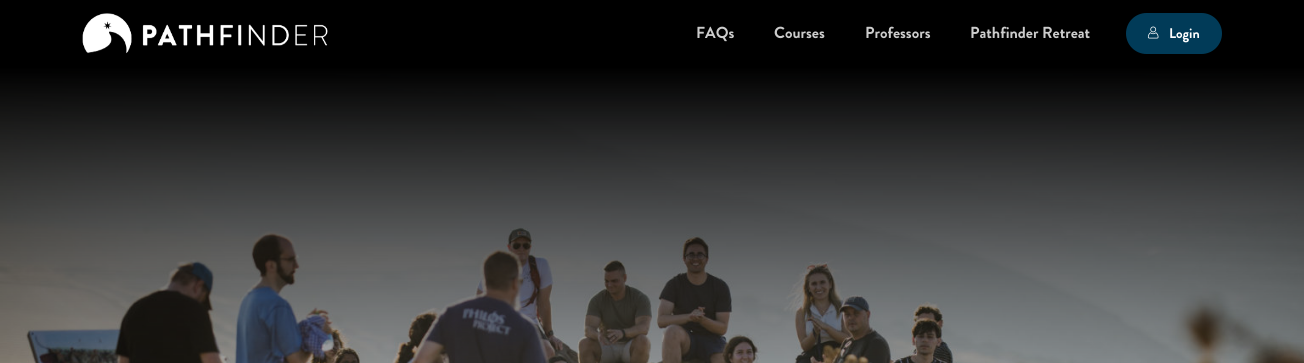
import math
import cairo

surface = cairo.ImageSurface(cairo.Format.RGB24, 1304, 363)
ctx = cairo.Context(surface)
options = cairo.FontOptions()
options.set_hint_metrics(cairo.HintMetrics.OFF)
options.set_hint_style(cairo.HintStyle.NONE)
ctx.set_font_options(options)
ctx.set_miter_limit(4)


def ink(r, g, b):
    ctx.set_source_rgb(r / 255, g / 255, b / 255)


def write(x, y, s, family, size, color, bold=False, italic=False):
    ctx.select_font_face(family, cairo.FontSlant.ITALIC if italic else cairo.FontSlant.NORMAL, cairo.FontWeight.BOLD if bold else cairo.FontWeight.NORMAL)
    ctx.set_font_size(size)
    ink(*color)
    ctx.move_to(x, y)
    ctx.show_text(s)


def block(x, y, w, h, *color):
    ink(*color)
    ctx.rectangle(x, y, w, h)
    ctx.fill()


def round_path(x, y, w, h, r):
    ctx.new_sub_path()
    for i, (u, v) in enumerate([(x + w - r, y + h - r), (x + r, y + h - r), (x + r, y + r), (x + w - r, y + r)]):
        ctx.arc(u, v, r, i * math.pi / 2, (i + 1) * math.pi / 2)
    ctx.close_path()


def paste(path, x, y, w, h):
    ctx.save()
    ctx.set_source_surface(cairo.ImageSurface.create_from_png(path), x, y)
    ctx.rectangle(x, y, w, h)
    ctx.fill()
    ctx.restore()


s1 = dict(family="Brandon Grotesque", size=16, color=(204, 204, 204), bold=True)
s2 = dict(family="Brandon Grotesque", size=14, color=(255, 255, 255), bold=True)

ink(255, 255, 255)
ctx.paint()
block(0, 0, 1304, 67, 0, 0, 0)
paste("pic1.png", 82, 13, 246, 41)
write(696, 38, "FAQs", **s1)
write(774, 38, "Courses", **s1)
write(865, 38, "Professors", **s1)
write(970, 38, "Pathfinder Retreat", **s1)
ink(1, 59, 88)
round_path(1126, 13, 96, 41, 20.5)
ctx.fill()
paste("pic2.png", 1147, 26, 12, 13)
write(1169, 38, "Login", **s2)
paste("pic3.png", 0, 67, 1304, 296)
surface.write_to_png("screenshot.png")
